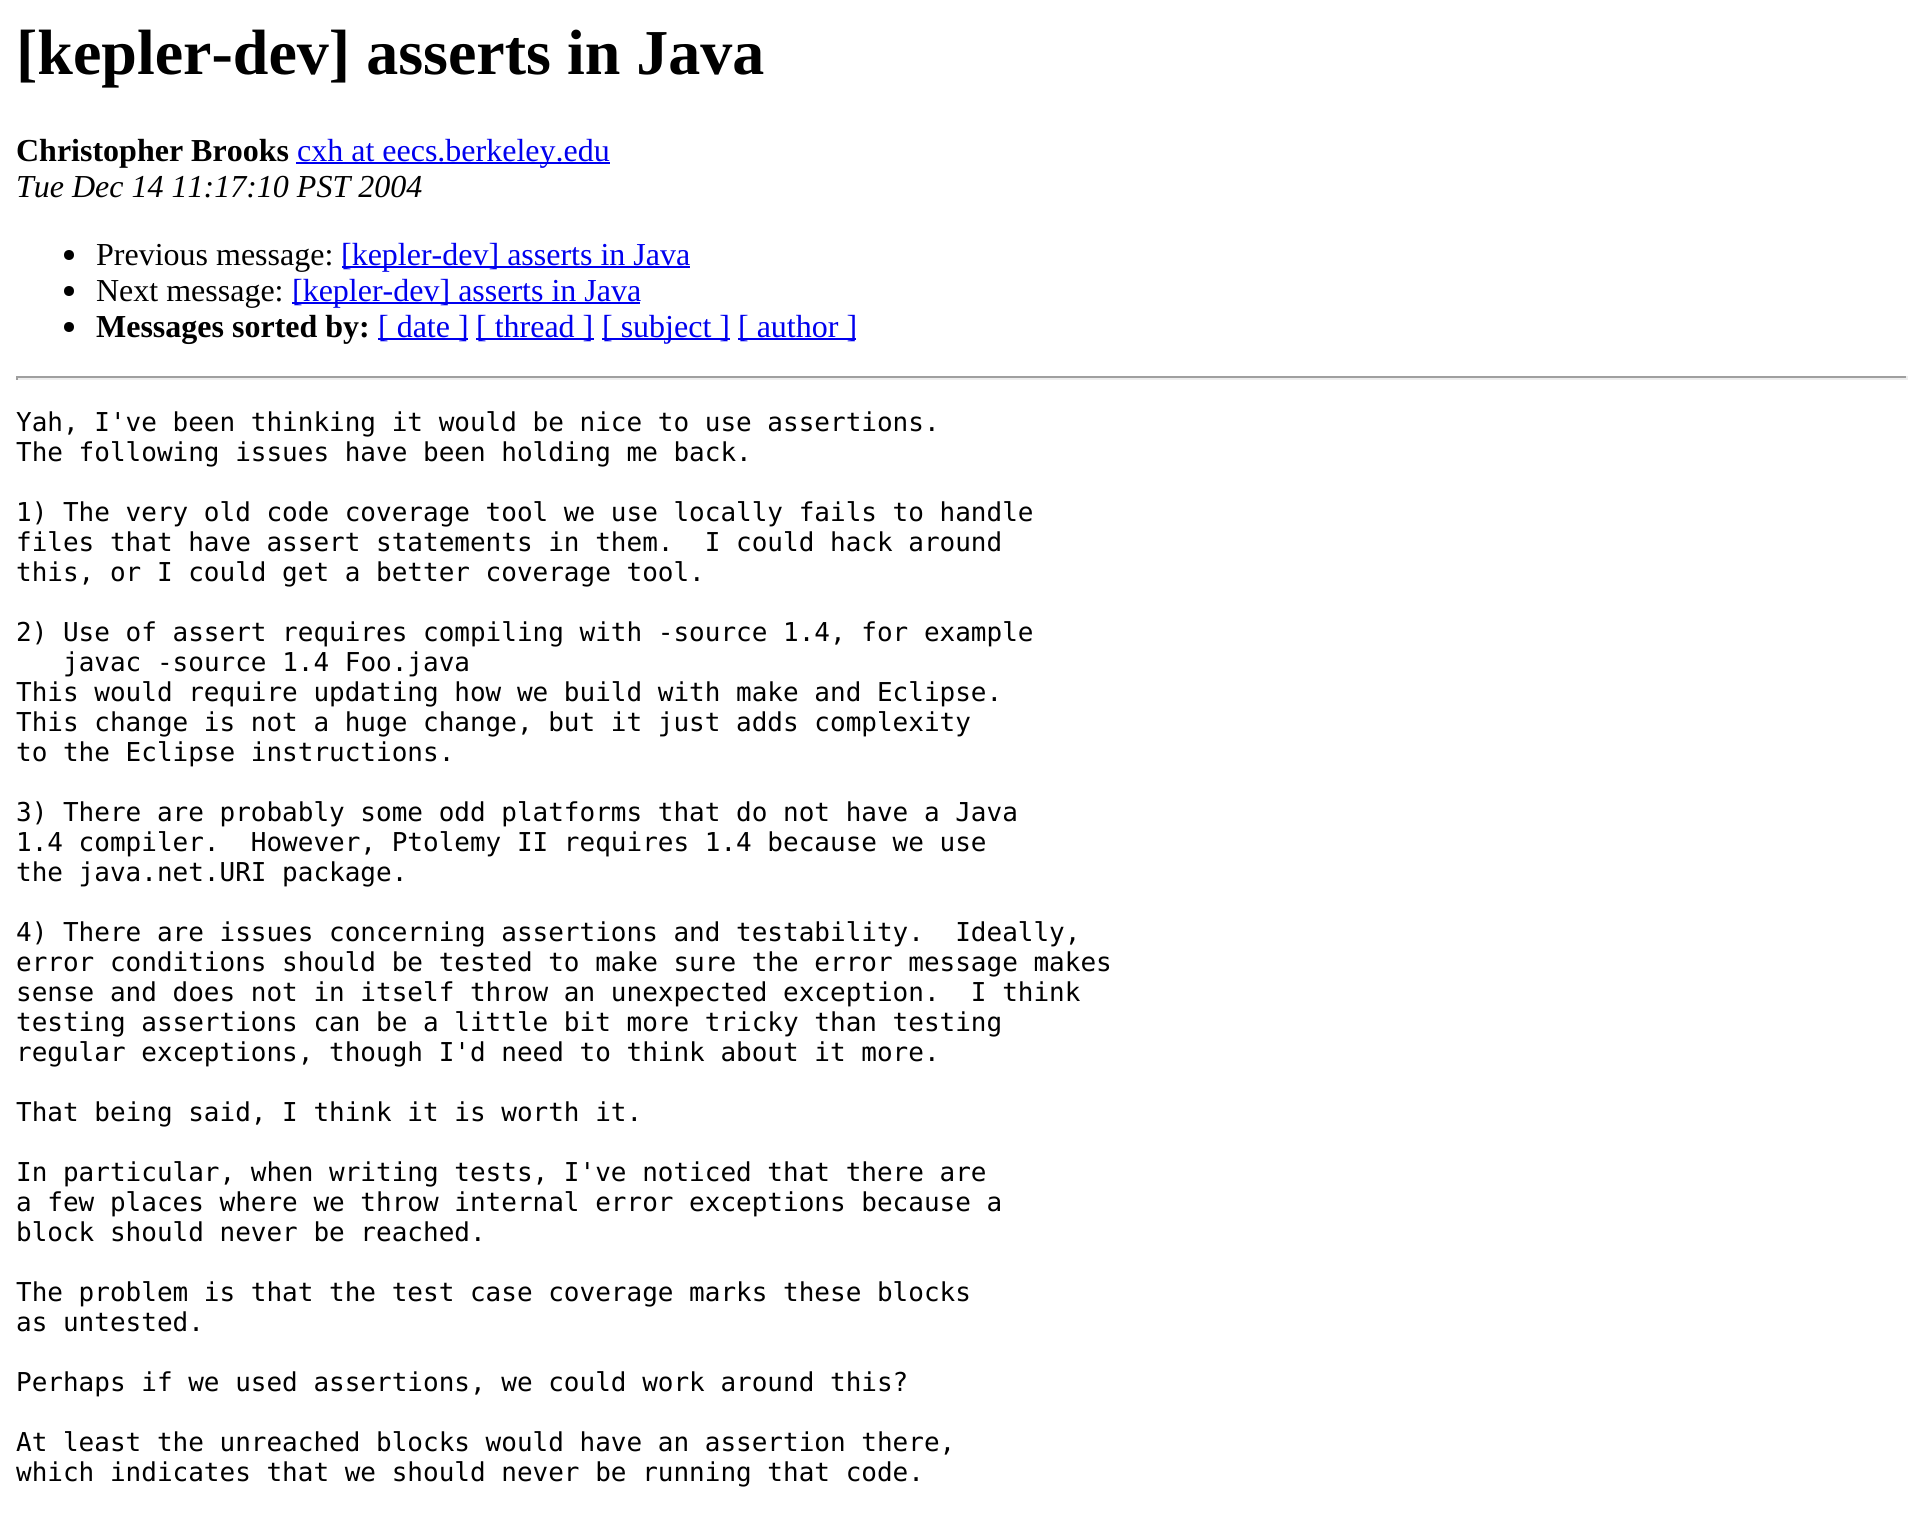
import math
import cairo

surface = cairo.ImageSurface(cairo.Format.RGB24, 1923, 1526)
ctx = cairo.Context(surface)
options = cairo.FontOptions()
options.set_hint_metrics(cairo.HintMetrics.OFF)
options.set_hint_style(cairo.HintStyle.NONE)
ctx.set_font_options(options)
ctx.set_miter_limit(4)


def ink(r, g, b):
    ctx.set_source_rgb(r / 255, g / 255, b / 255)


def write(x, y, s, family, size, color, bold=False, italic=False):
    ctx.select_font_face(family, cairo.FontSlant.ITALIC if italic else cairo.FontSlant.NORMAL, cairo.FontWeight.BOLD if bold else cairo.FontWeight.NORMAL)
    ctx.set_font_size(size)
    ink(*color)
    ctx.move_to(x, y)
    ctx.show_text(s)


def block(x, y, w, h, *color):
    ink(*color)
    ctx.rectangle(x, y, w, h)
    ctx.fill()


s1 = dict(family="Liberation Serif", size=64, color=(0, 0, 0), bold=True)
s2 = dict(family="Liberation Serif", size=32, color=(0, 0, 0), bold=True)
s3 = dict(family="Liberation Serif", size=32, color=(0, 0, 238))
s4 = dict(family="Liberation Serif", size=32, color=(0, 0, 0), italic=True)
s5 = dict(family="Liberation Serif", size=32, color=(0, 0, 0))
s6 = dict(family="DejaVu Sans Mono", size=26, color=(0, 0, 0))

ink(255, 255, 255)
ctx.paint()
write(16, 74, "[kepler-dev] asserts in Java", **s1)
write(16, 161, "Christopher Brooks", **s2)
block(296, 162, 314, 2, 0, 0, 238)
write(297, 161, "cxh at eecs.berkeley.edu", **s3)
write(16, 197, "Tue Dec 14 11:17:10 PST 2004", **s4)
ctx.new_path()
ctx.arc(69, 255, 5, 0, 2 * math.pi)
ctx.fill()
write(96, 265, "Previous message:", **s5)
block(342, 266, 348, 2, 0, 0, 238)
write(341, 265, "[kepler-dev] asserts in Java", **s3)
ink(0, 0, 0)
ctx.new_path()
ctx.arc(69, 291, 5, 0, 2 * math.pi)
ctx.fill()
write(96, 301, "Next message:", **s5)
block(292, 302, 348, 2, 0, 0, 238)
write(292, 301, "[kepler-dev] asserts in Java", **s3)
ink(0, 0, 0)
ctx.new_path()
ctx.arc(69, 327, 5, 0, 2 * math.pi)
ctx.fill()
write(96, 337, "Messages sorted by:", **s2)
block(378, 338, 90, 2, 0, 0, 238)
write(378, 337, "[ date ]", **s3)
block(476, 338, 118, 2, 0, 0, 238)
write(476, 337, "[ thread ]", **s3)
block(602, 338, 128, 2, 0, 0, 238)
write(602, 337, "[ subject ]", **s3)
block(738, 338, 118, 2, 0, 0, 238)
write(738, 337, "[ author ]", **s3)
block(16, 376, 1892, 2, 159, 159, 159)
block(1906, 376, 2, 4, 238, 238, 238)
block(16, 378, 1892, 2, 238, 238, 238)
block(16, 376, 2, 4, 159, 159, 159)
write(16, 431, "Yah, I've been thinking it would be nice to use assertions.", **s6)
write(16, 461, "The following issues have been holding me back.", **s6)
write(16, 521, "1) The very old code coverage tool we use locally fails to handle", **s6)
write(16, 551, "files that have assert statements in them.  I could hack around", **s6)
write(16, 581, "this, or I could get a better coverage tool.", **s6)
write(16, 641, "2) Use of assert requires compiling with -source 1.4, for example", **s6)
write(63, 671, "javac -source 1.4 Foo.java", **s6)
write(16, 701, "This would require updating how we build with make and Eclipse.", **s6)
write(16, 731, "This change is not a huge change, but it just adds complexity", **s6)
write(16, 761, "to the Eclipse instructions.", **s6)
write(16, 821, "3) There are probably some odd platforms that do not have a Java", **s6)
write(16, 851, "1.4 compiler.  However, Ptolemy II requires 1.4 because we use", **s6)
write(16, 881, "the java.net.URI package.", **s6)
write(16, 941, "4) There are issues concerning assertions and testability.  Ideally,", **s6)
write(16, 971, "error conditions should be tested to make sure the error message makes", **s6)
write(16, 1001, "sense and does not in itself throw an unexpected exception.  I think", **s6)
write(16, 1031, "testing assertions can be a little bit more tricky than testing", **s6)
write(16, 1061, "regular exceptions, though I'd need to think about it more.", **s6)
write(16, 1121, "That being said, I think it is worth it.", **s6)
write(16, 1181, "In particular, when writing tests, I've noticed that there are", **s6)
write(16, 1211, "a few places where we throw internal error exceptions because a", **s6)
write(16, 1241, "block should never be reached.", **s6)
write(16, 1301, "The problem is that the test case coverage marks these blocks", **s6)
write(16, 1331, "as untested.", **s6)
write(16, 1391, "Perhaps if we used assertions, we could work around this?", **s6)
write(16, 1451, "At least the unreached blocks would have an assertion there,", **s6)
write(16, 1481, "which indicates that we should never be running that code.", **s6)
surface.write_to_png("screenshot.png")
